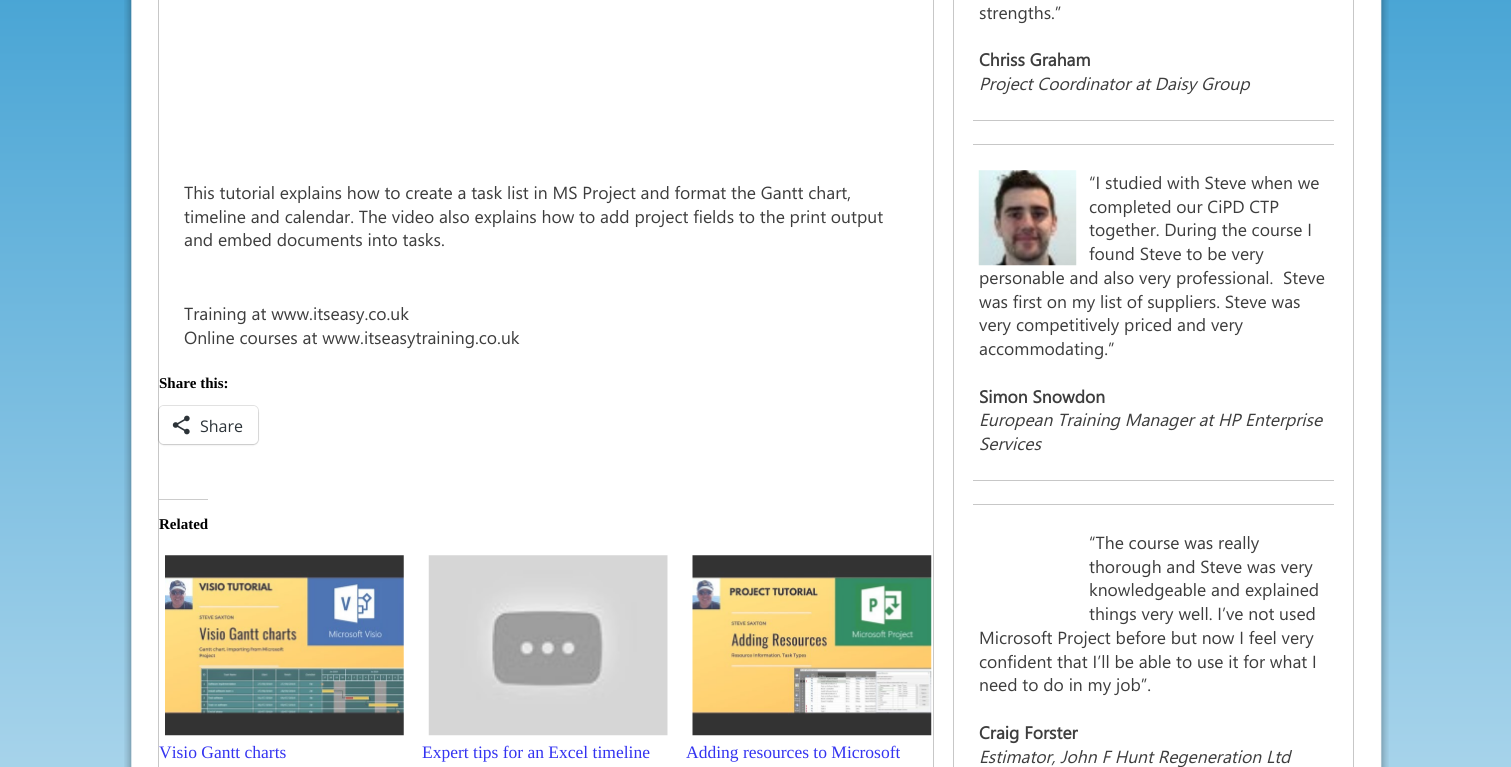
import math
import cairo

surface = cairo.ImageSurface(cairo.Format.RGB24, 1511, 767)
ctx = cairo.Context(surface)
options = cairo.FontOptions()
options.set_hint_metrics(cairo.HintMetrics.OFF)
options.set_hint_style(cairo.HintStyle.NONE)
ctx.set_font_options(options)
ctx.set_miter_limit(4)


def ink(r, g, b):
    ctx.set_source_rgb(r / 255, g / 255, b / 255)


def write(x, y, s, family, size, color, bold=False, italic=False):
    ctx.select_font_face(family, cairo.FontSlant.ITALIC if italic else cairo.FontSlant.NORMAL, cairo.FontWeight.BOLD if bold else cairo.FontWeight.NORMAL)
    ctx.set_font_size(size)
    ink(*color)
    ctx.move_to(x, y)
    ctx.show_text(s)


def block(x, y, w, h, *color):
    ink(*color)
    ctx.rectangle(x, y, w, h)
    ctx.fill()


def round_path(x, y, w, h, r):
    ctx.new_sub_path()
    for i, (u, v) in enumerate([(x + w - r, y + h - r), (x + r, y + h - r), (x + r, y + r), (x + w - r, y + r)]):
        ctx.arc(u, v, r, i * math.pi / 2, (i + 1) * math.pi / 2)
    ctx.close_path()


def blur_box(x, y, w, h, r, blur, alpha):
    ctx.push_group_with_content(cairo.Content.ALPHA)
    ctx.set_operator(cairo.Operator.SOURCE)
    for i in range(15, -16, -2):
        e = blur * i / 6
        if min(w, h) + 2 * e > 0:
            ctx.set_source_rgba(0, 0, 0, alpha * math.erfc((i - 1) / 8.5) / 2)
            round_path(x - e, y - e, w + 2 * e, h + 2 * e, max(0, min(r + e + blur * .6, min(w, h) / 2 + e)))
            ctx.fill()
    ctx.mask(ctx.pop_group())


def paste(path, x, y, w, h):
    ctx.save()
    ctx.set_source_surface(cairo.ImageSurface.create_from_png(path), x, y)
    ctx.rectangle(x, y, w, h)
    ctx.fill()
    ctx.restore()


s1 = dict(family="Segoe UI", size=17.5, color=(61, 61, 61))
s2 = dict(family="Liberation Serif", size=15, color=(0, 0, 0), bold=True)
s3 = dict(family="Open Sans", size=16, color=(44, 51, 56))
s4 = dict(family="Liberation Serif", size=17.5, color=(51, 51, 241))
s5 = dict(family="Segoe UI", size=17.5, color=(61, 61, 61), bold=True)
s6 = dict(family="Segoe UI", size=17.5, color=(61, 61, 61), italic=True)

ink(255, 255, 255)
ctx.paint()
gradient = cairo.LinearGradient(756, -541, 756, 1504)
gradient.add_color_stop_rgba(0, 0.035, 0.522, 0.776, 1)
gradient.add_color_stop_rgba(1, 1, 1, 1, 1)
ctx.set_source(gradient)
ctx.rectangle(0, 0, 1511, 767)
ctx.fill()
paste("pic1.png", 124, 0, 1265, 767)
ctx.rectangle(158.5, -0.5, 775, 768)
ink(199, 199, 199)
ctx.set_line_width(1)
ctx.stroke()
write(184, 199, "This tutorial explains how to create a task list in MS Project and format the Gantt chart,", **s1)
write(184, 223, "timeline and calendar. The video also explains how to add project fields to the print output", **s1)
write(184, 246, "and embed documents into tasks.", **s1)
write(184, 320, "Training at www.itseasy.co.uk", **s1)
write(184, 344, "Online courses at www.itseasytraining.co.uk", **s1)
write(159, 388, "Share this:", **s2)
round_path(158.5, 405.5, 100, 39, 5.5)
ctx.set_source_rgba(0, 0, 0, 0.12)
ctx.stroke()
ink(0, 0, 0)
blur_box(159, 408, 99, 37, 5, 1, 0.12)
ink(255, 255, 255)
round_path(159, 406, 99, 38, 5)
ctx.fill()
paste("pic2.png", 172, 415, 18, 20)
write(200, 432, "Share", **s3)
block(159, 499, 49, 1, 204, 204, 204)
write(159, 529, "Related", **s2)
paste("pic3.png", 165, 555, 239, 181)
write(159, 758, "Visio Gantt charts", **s4)
paste("pic4.png", 428, 555, 240, 181)
write(422, 758, "Expert tips for an Excel timeline", **s4)
paste("pic5.png", 692, 555, 240, 181)
write(686, 758, "Adding resources to Microsoft", **s4)
ctx.rectangle(953.5, -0.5, 400, 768)
ink(199, 199, 199)
ctx.stroke()
write(979, 19, "strengths.”", **s1)
write(979, 66, "Chriss Graham", **s5)
write(979, 90, "Project Coordinator at Daisy Group", **s6)
block(973, 120, 361, 1, 199, 199, 199)
block(973, 144, 361, 1, 199, 199, 199)
paste("pic6.png", 978, 170, 99, 96)
write(1089, 189, "“I studied with Steve when we", **s1)
write(1089, 213, "completed our CiPD CTP", **s1)
write(1089, 236, "together. During the course I", **s1)
write(1089, 260, "found Steve to be very", **s1)
write(979, 284, "personable and also very professional.  Steve", **s1)
write(979, 308, "was first on my list of suppliers. Steve was", **s1)
write(979, 331, "very competitively priced and very", **s1)
write(979, 355, "accommodating.”", **s1)
write(979, 403, "Simon Snowdon", **s5)
write(979, 426, "European Training Manager at HP Enterprise", **s6)
write(979, 450, "Services", **s6)
block(973, 480, 361, 1, 199, 199, 199)
block(973, 504, 361, 1, 199, 199, 199)
write(1089, 549, "“The course was really", **s1)
write(1089, 573, "thorough and Steve was very", **s1)
write(1089, 596, "knowledgeable and explained", **s1)
write(1089, 620, "things very well. I’ve not used", **s1)
write(979, 644, "Microsoft Project before but now I feel very", **s1)
write(979, 668, "confident that I’ll be able to use it for what I", **s1)
write(979, 691, "need to do in my job”.", **s1)
write(979, 739, "Craig Forster", **s5)
write(979, 763, "Estimator, John F Hunt Regeneration Ltd", **s6)
surface.write_to_png("screenshot.png")
